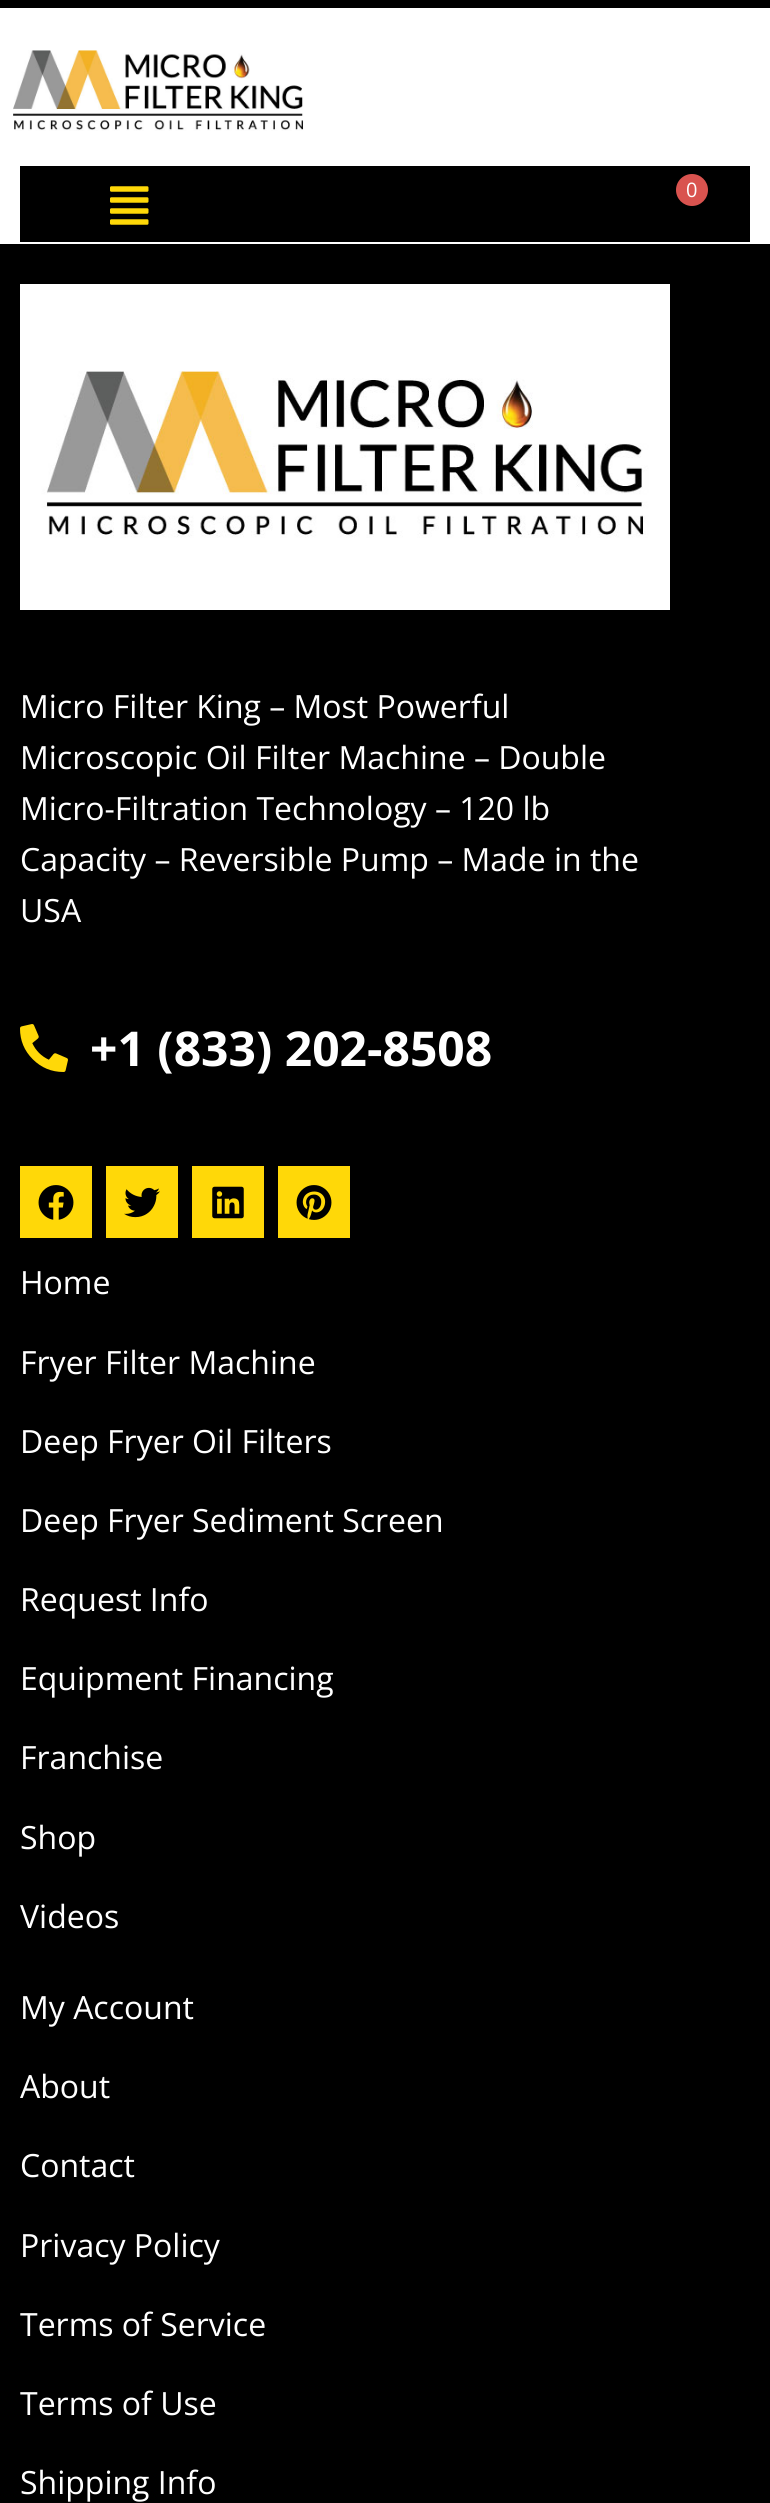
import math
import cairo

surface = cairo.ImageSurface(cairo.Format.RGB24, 770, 2503)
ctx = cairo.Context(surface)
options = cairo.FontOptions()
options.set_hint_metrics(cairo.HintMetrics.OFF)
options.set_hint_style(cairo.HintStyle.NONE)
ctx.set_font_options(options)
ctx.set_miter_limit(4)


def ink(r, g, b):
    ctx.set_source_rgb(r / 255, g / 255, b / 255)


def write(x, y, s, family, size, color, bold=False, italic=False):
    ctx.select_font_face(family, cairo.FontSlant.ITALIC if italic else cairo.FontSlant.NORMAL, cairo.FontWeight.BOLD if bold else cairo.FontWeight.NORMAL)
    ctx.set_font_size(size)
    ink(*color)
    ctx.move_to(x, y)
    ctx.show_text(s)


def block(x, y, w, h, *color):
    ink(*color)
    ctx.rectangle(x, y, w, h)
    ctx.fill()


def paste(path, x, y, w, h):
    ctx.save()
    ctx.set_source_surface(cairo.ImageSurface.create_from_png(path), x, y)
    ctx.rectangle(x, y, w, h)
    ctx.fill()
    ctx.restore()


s1 = dict(family="Open Sans", size=20, color=(255, 255, 255))
s2 = dict(family="Open Sans", size=32, color=(255, 255, 255))
s3 = dict(family="Open Sans", size=48, color=(255, 255, 255), bold=True)

ink(255, 255, 255)
ctx.paint()
block(0, 0, 770, 8, 0, 0, 0)
paste("pic1.png", 13, 50, 291, 81)
block(20, 166, 730, 76, 0, 0, 0)
paste("pic2.png", 110, 186, 39, 39)
ink(217, 83, 79)
ctx.arc(692, 190, 16, 0, 2 * math.pi)
ctx.fill()
write(686, 197, "0", **s1)
block(0, 244, 770, 2259, 0, 0, 0)
paste("pic3.png", 20, 284, 650, 326)
write(20, 718, "Micro Filter King – Most Powerful", **s2)
write(20, 769, "Microscopic Oil Filter Machine – Double", **s2)
write(20, 820, "Micro-Filtration Technology – 120 lb", **s2)
write(20, 871, "Capacity – Reversible Pump – Made in the", **s2)
write(20, 922, "USA", **s2)
paste("pic4.png", 20, 1024, 48, 48)
write(90, 1066, "+1 (833) 202-8508", **s3)
block(20, 1166, 72, 72, 255, 216, 8)
paste("pic5.png", 38, 1185, 36, 35)
block(106, 1166, 72, 72, 255, 216, 8)
paste("pic6.png", 124, 1187, 36, 31)
block(192, 1166, 72, 72, 255, 216, 8)
paste("pic7.png", 212, 1186, 32, 33)
block(278, 1166, 72, 72, 255, 216, 8)
paste("pic8.png", 296, 1185, 36, 35)
write(20, 1294, "Home", **s2)
write(20, 1374, "Fryer Filter Machine", **s2)
write(20, 1453, "Deep Fryer Oil Filters", **s2)
write(20, 1532, "Deep Fryer Sediment Screen", **s2)
write(20, 1611, "Request Info", **s2)
write(20, 1690, "Equipment Financing", **s2)
write(20, 1769, "Franchise", **s2)
write(20, 1849, "Shop", **s2)
write(20, 1928, "Videos", **s2)
write(20, 2019, "My Account", **s2)
write(20, 2098, "About", **s2)
write(20, 2177, "Contact", **s2)
write(20, 2257, "Privacy Policy", **s2)
write(20, 2336, "Terms of Service", **s2)
write(20, 2415, "Terms of Use", **s2)
write(20, 2494, "Shipping Info", **s2)
surface.write_to_png("screenshot.png")
